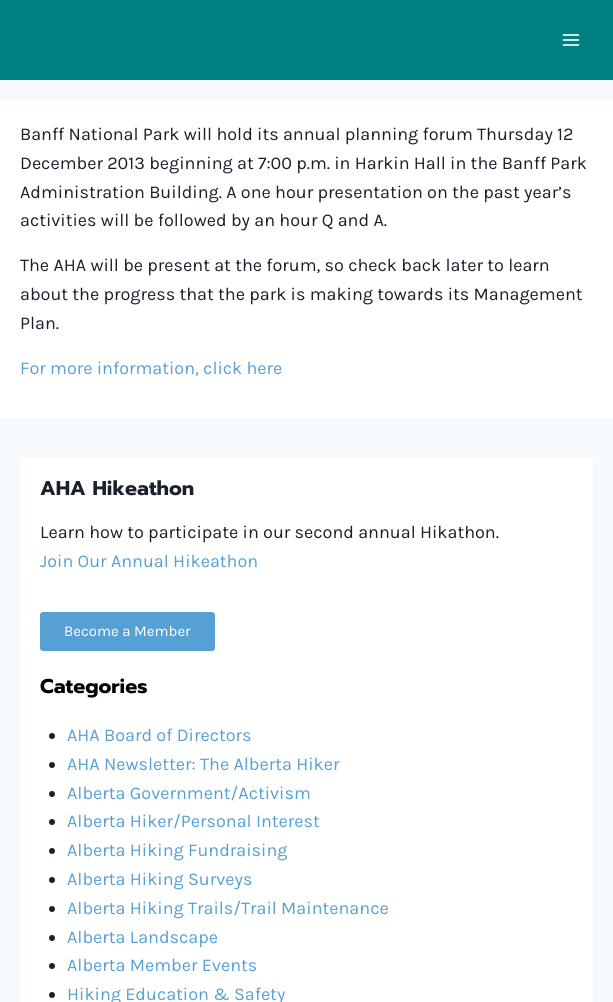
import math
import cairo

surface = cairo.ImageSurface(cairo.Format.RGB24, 613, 1002)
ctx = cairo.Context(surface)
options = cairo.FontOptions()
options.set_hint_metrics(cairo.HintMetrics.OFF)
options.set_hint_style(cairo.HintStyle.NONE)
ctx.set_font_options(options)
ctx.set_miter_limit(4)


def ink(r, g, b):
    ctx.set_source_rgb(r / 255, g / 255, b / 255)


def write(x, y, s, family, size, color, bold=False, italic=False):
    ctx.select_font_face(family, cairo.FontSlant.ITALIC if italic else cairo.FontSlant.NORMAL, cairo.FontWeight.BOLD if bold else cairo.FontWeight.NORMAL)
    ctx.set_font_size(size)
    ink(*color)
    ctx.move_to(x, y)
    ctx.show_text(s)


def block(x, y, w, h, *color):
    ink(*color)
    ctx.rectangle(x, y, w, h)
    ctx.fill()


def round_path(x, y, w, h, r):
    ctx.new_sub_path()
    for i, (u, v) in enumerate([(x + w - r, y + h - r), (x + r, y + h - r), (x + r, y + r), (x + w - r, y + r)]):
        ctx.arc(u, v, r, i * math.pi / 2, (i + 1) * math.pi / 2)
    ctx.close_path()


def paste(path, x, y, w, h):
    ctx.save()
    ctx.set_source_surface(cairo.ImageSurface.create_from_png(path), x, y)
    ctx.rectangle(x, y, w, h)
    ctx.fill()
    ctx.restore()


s1 = dict(family="Karla", size=18, color=(26, 32, 44))
s2 = dict(family="Karla", size=18, color=(87, 160, 212))
s3 = dict(family="Prompt", size=20, color=(26, 32, 44), bold=True)
s4 = dict(family="Karla", size=15, color=(255, 255, 255))
s5 = dict(family="Prompt", size=20, color=(0, 0, 0), bold=True)

ink(247, 250, 252)
ctx.paint()
block(0, 0, 613, 80, 0, 128, 129)
paste("pic1.png", 562, 34, 18, 12)
block(0, 100, 613, 318, 255, 255, 255)
write(20, 140, "Banff National Park will hold its annual planning forum Thursday 12", **s1)
write(20, 169, "December 2013 beginning at 7:00 p.m. in Harkin Hall in the Banff Park", **s1)
write(20, 198, "Administration Building. A one hour presentation on the past year’s", **s1)
write(20, 226, "activities will be followed by an hour Q and A.", **s1)
write(20, 271, "The AHA will be present at the forum, so check back later to learn", **s1)
write(20, 300, "about the progress that the park is making towards its Management", **s1)
write(20, 329, "Plan.", **s1)
write(20, 374, "For more information, click here", **s2)
block(20, 458, 573, 544, 255, 255, 255)
write(40, 495, "AHA Hikeathon", **s3)
write(40, 538, "Learn how to participate in our second annual Hikathon.", **s1)
write(40, 567, "Join Our Annual Hikeathon", **s2)
round_path(40, 612, 175, 39, 3)
ctx.fill()
write(64, 636, "Become a Member", **s4)
write(40, 693, "Categories", **s5)
ink(26, 32, 44)
ctx.new_path()
ctx.arc(52, 736, 3, 0, 2 * math.pi)
ctx.fill()
write(67, 741, "AHA Board of Directors", **s2)
ink(26, 32, 44)
ctx.new_path()
ctx.arc(52, 765, 3, 0, 2 * math.pi)
ctx.fill()
write(67, 770, "AHA Newsletter: The Alberta Hiker", **s2)
ink(26, 32, 44)
ctx.new_path()
ctx.arc(52, 794, 3, 0, 2 * math.pi)
ctx.fill()
write(67, 799, "Alberta Government/Activism", **s2)
ink(26, 32, 44)
ctx.new_path()
ctx.arc(52, 822, 3, 0, 2 * math.pi)
ctx.fill()
write(67, 827, "Alberta Hiker/Personal Interest", **s2)
ink(26, 32, 44)
ctx.new_path()
ctx.arc(52, 851, 3, 0, 2 * math.pi)
ctx.fill()
write(67, 856, "Alberta Hiking Fundraising", **s2)
ink(26, 32, 44)
ctx.new_path()
ctx.arc(52, 880, 3, 0, 2 * math.pi)
ctx.fill()
write(67, 885, "Alberta Hiking Surveys", **s2)
ink(26, 32, 44)
ctx.new_path()
ctx.arc(52, 909, 3, 0, 2 * math.pi)
ctx.fill()
write(67, 914, "Alberta Hiking Trails/Trail Maintenance", **s2)
ink(26, 32, 44)
ctx.new_path()
ctx.arc(52, 938, 3, 0, 2 * math.pi)
ctx.fill()
write(67, 943, "Alberta Landscape", **s2)
ink(26, 32, 44)
ctx.new_path()
ctx.arc(52, 966, 3, 0, 2 * math.pi)
ctx.fill()
write(67, 971, "Alberta Member Events", **s2)
ink(26, 32, 44)
ctx.new_path()
ctx.arc(52, 995, 3, 0, 2 * math.pi)
ctx.fill()
write(67, 1000, "Hiking Education & Safety", **s2)
surface.write_to_png("screenshot.png")
